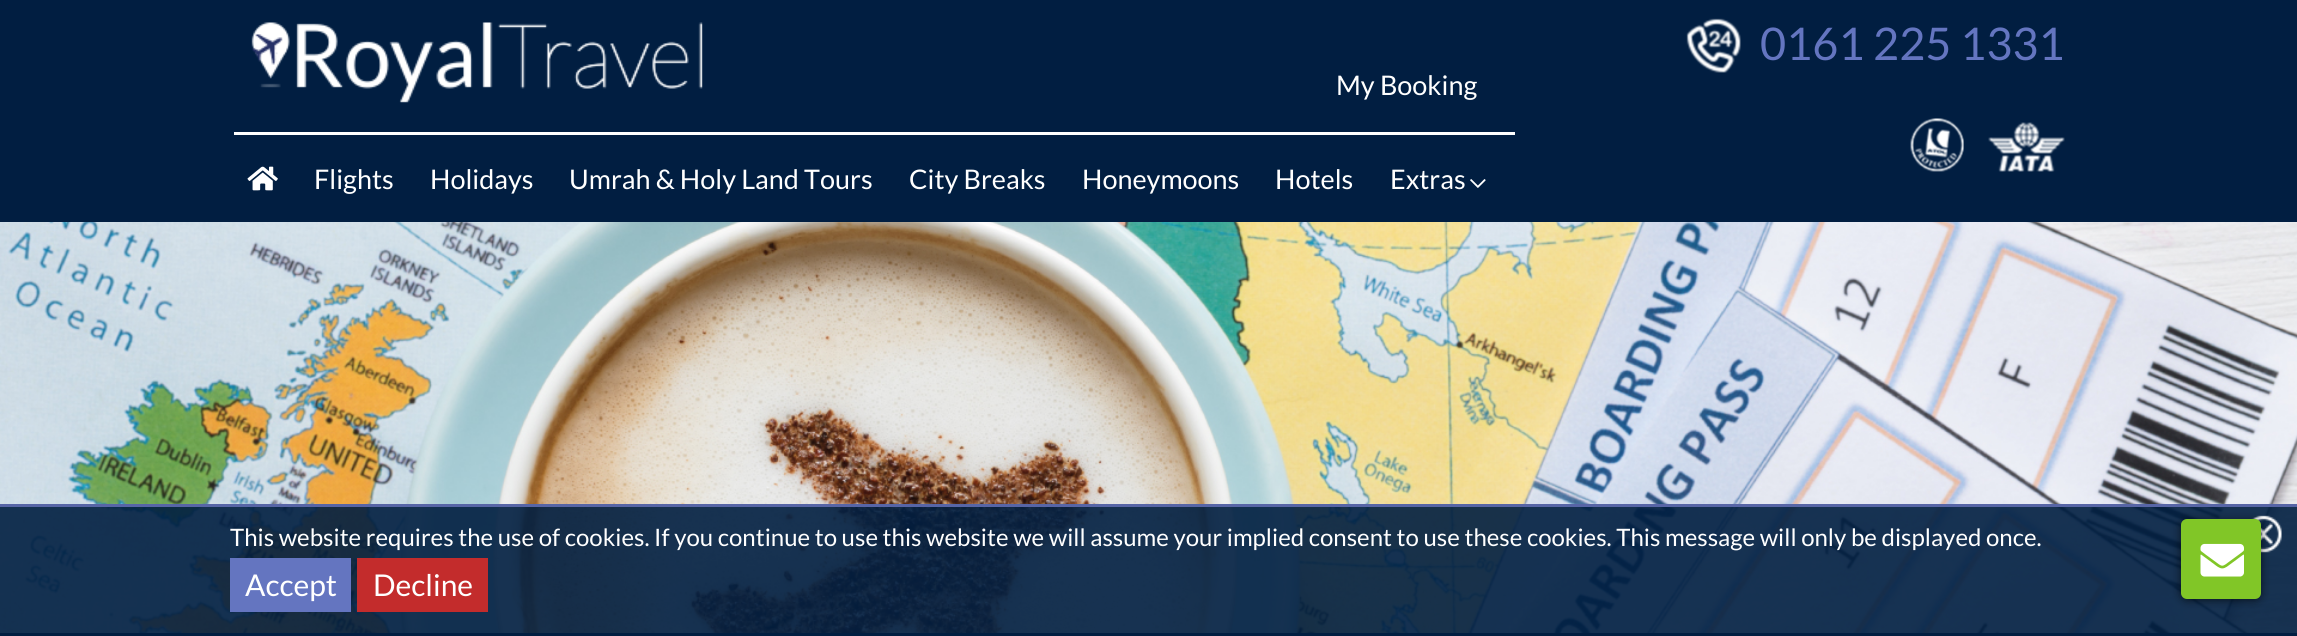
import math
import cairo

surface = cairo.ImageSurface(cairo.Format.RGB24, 2297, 636)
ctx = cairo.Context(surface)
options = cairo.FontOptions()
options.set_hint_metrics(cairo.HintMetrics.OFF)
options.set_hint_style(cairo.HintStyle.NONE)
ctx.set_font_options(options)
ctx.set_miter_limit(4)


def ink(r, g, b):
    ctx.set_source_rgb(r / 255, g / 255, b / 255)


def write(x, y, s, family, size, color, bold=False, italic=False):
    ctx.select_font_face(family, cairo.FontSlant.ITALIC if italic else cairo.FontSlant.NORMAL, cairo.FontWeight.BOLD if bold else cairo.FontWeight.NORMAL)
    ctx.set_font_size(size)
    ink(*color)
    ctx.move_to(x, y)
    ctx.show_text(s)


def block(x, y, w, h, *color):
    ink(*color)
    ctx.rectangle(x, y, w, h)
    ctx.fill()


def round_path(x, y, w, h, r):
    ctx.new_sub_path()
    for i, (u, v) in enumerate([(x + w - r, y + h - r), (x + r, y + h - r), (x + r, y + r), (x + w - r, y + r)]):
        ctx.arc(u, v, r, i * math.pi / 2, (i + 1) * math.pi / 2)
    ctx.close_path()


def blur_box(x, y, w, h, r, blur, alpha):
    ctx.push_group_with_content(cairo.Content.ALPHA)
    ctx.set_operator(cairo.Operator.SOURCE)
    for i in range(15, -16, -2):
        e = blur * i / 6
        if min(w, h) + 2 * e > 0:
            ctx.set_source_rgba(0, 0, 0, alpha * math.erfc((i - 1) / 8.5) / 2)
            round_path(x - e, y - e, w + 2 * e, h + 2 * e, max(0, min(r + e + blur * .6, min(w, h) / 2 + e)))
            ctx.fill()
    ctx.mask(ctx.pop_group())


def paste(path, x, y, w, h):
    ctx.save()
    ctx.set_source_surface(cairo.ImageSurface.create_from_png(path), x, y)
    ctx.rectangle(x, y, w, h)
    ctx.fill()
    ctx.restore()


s1 = dict(family="Lato", size=45, color=(100, 117, 192))
s2 = dict(family="Lato", size=27, color=(255, 255, 255))
s3 = dict(family="Lato", size=24, color=(255, 255, 255))
s4 = dict(family="Lato", size=30, color=(255, 255, 255))

ink(255, 255, 255)
ctx.paint()
block(0, 0, 2297, 222, 1, 30, 65)
paste("pic1.png", 1686, 18, 55, 55)
write(1760, 60, "0161 225 1331", **s1)
paste("pic2.png", 1910, 118, 54, 54)
paste("pic3.png", 1988, 122, 77, 50)
paste("pic4.png", 251, 22, 452, 81)
write(1336, 95, "My Booking", **s2)
block(234, 132, 1281, 3, 255, 255, 255)
paste("pic5.png", 247, 166, 31, 25)
write(314, 189, "Flights", **s2)
write(430, 189, "Holidays", **s2)
write(569, 189, "Umrah & Holy Land Tours", **s2)
write(909, 189, "City Breaks", **s2)
write(1082, 189, "Honeymoons", **s2)
write(1275, 189, "Hotels", **s2)
write(1390, 189, "Extras", **s2)
paste("pic6.png", 1470, 179, 16, 9)
paste("pic7.png", 0, 222, 2297, 411)
ctx.set_source_rgba(0.004, 0.118, 0.255, 0.9)
ctx.rectangle(0, 507, 2297, 126)
ctx.fill()
paste("pic9.png", 2251, 515, 31, 38)
block(0, 504, 2297, 3, 87, 101, 166)
ink(0, 0, 0)
blur_box(2181, 521, 80, 79, 6, 4.5, 0.65)
ink(129, 198, 39)
round_path(2181, 519, 80, 80, 6)
ctx.fill()
paste("pic8.png", 2200, 543, 44, 34)
block(0, 633, 2297, 3, 1, 30, 65)
write(230, 546, "This website requires the use of cookies. If you continue to use this website we will assume your implied consent to use these cookies. This message will only be displayed once.", **s3)
block(230, 558, 121, 54, 100, 117, 192)
write(245, 596, "Accept", **s4)
block(357, 558, 131, 54, 195, 44, 44)
write(373, 596, "Decline", **s4)
surface.write_to_png("screenshot.png")
